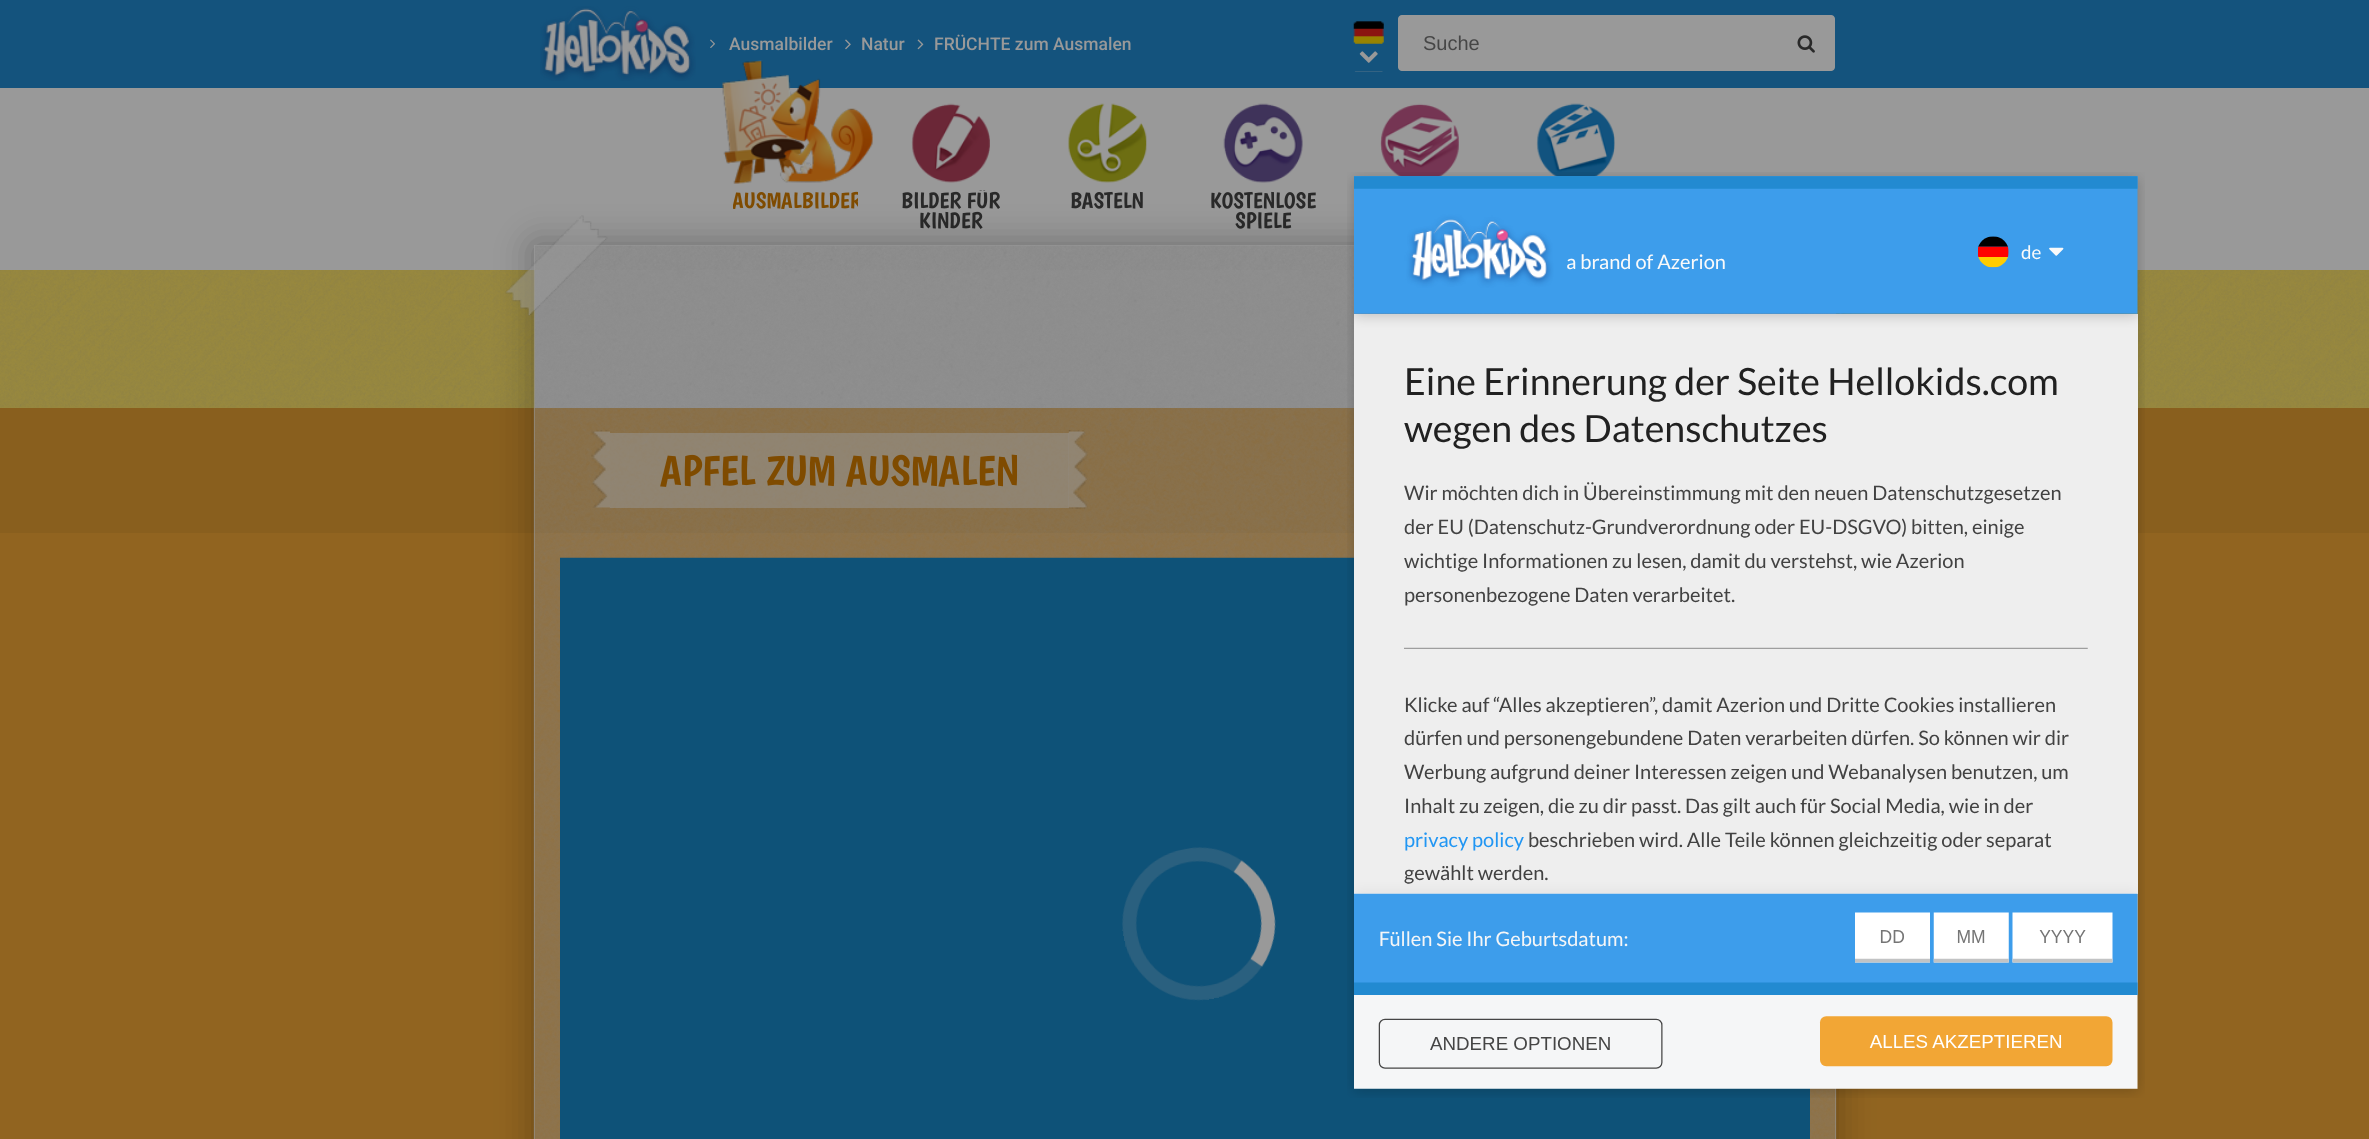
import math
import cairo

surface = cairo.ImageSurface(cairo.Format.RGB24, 2369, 1139)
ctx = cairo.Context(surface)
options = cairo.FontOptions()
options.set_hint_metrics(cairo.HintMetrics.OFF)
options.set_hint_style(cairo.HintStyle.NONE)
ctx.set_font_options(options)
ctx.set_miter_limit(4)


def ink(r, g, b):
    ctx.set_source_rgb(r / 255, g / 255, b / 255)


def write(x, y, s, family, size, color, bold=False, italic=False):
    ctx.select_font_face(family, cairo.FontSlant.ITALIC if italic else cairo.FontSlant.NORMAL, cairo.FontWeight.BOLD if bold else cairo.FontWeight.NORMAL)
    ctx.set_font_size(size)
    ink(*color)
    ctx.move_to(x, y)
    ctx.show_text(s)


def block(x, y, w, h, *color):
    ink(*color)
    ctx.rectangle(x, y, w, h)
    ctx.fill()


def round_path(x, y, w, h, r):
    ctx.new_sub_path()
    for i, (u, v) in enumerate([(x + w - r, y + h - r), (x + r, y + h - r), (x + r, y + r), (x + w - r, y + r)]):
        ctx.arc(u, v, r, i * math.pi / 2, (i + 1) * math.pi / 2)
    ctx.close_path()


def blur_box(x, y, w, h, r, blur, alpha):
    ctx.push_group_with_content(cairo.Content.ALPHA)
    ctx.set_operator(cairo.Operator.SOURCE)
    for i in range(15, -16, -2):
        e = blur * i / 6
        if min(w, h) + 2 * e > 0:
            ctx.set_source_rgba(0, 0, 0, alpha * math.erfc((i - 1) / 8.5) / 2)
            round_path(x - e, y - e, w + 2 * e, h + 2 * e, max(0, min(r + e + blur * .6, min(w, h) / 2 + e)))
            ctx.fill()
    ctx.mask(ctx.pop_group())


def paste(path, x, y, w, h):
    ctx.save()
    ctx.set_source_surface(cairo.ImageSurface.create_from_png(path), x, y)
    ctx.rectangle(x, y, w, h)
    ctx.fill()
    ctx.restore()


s1 = dict(family="Roboto Medium", size=17.5, color=(153, 153, 153))
s2 = dict(family="Liberation Sans", size=20, color=(70, 70, 70))
s3 = dict(family="Boogaloo", size=22.5, color=(127, 75, 0))
s4 = dict(family="Boogaloo", size=22.5, color=(41, 41, 41))
s5 = dict(family="Boogaloo", size=42.5, color=(127, 75, 0))

ink(153, 153, 153)
ctx.paint()
block(0, 0, 2369, 88, 20, 83, 125)
paste("pic1.png", 540, 6, 156, 75)
paste("pic2.png", 710, 39, 5, 9)
write(729, 50, "Ausmalbilder", **s1)
paste("pic3.png", 845, 39, 6, 11)
write(861, 50, "Natur", **s1)
paste("pic4.png", 917, 39, 7, 11)
write(934, 50, "FRÜCHTE zum Ausmalen", **s1)
paste("pic5.png", 1353, 21, 31, 51)
block(1353, 51, 31, 20, 20, 83, 125)
paste("pic6.png", 1359, 51, 19, 12)
ink(153, 153, 153)
round_path(1398, 15, 437, 56, 4)
ctx.fill()
write(1423, 50, "Suche", **s2)
paste("pic7.png", 1797, 35, 18, 18)
paste("pic8.png", 1380, 103, 79, 74)
paste("pic9.png", 1536, 103, 79, 74)
paste("pic10.png", 722, 60, 151, 124)
ctx.save()
ctx.rectangle(733, 190, 125, 40)
ctx.clip()
write(732, 208, "AUSMALBILDER", **s3)
ctx.restore()
paste("pic11.png", 911, 103, 79, 80)
ctx.save()
ctx.rectangle(889, 190, 125, 40)
ctx.clip()
write(901, 208, "BILDER FÜR", **s4)
ctx.restore()
write(919, 228, "KINDER", **s4)
paste("pic12.png", 1068, 103, 79, 80)
write(1070, 208, "BASTELN", **s4)
paste("pic13.png", 1223, 103, 80, 80)
write(1210, 208, "KOSTENLOSE", **s4)
write(1235, 228, "SPIELE", **s4)
block(535, 245, 819, 25, 145, 145, 145)
paste("pic15.png", 535, 245, 819, 25)
block(0, 270, 2369, 138, 152, 136, 61)
paste("pic18.png", 0, 270, 2369, 138)
block(535, 270, 1300, 138, 145, 145, 145)
block(0, 533, 2369, 606, 145, 100, 32)
block(0, 408, 2369, 125, 137, 95, 30)
ctx.save()
ctx.set_fill_rule(cairo.FillRule.EVEN_ODD)
ctx.new_path()
ctx.move_to(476, 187)
ctx.line_to(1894, 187)
ctx.line_to(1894, 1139)
ctx.line_to(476, 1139)
ctx.close_path()
ctx.move_to(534, 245)
ctx.line_to(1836, 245)
ctx.line_to(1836, 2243)
ctx.line_to(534, 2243)
ctx.close_path()
ctx.clip()
ink(0, 0, 0)
blur_box(534, 245, 1302, 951, 0, 19, 0.3)
ctx.restore()
paste("pic14.png", 533, 245, 1304, 894)
ctx.rectangle(534.5, 245.5, 1301, 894)
ctx.set_source_rgba(0.6, 0.6, 0.6, 0.5)
ctx.set_line_width(1)
ctx.stroke()
paste("pic16.png", 505, 215, 103, 101)
paste("pic17.png", 1838, 313, 5, 1)
ctx.rectangle(610, 433, 459, 75)
ctx.fill()
paste("pic19.png", 591, 430, 19, 78)
write(660, 485, "APFEL ZUM AUSMALEN", **s5)
paste("pic20.png", 1068, 430, 20, 79)
paste("pic21.png", 560, 557, 1250, 582)
paste("pic22.png", 1347, 172, 798, 926)
surface.write_to_png("screenshot.png")
